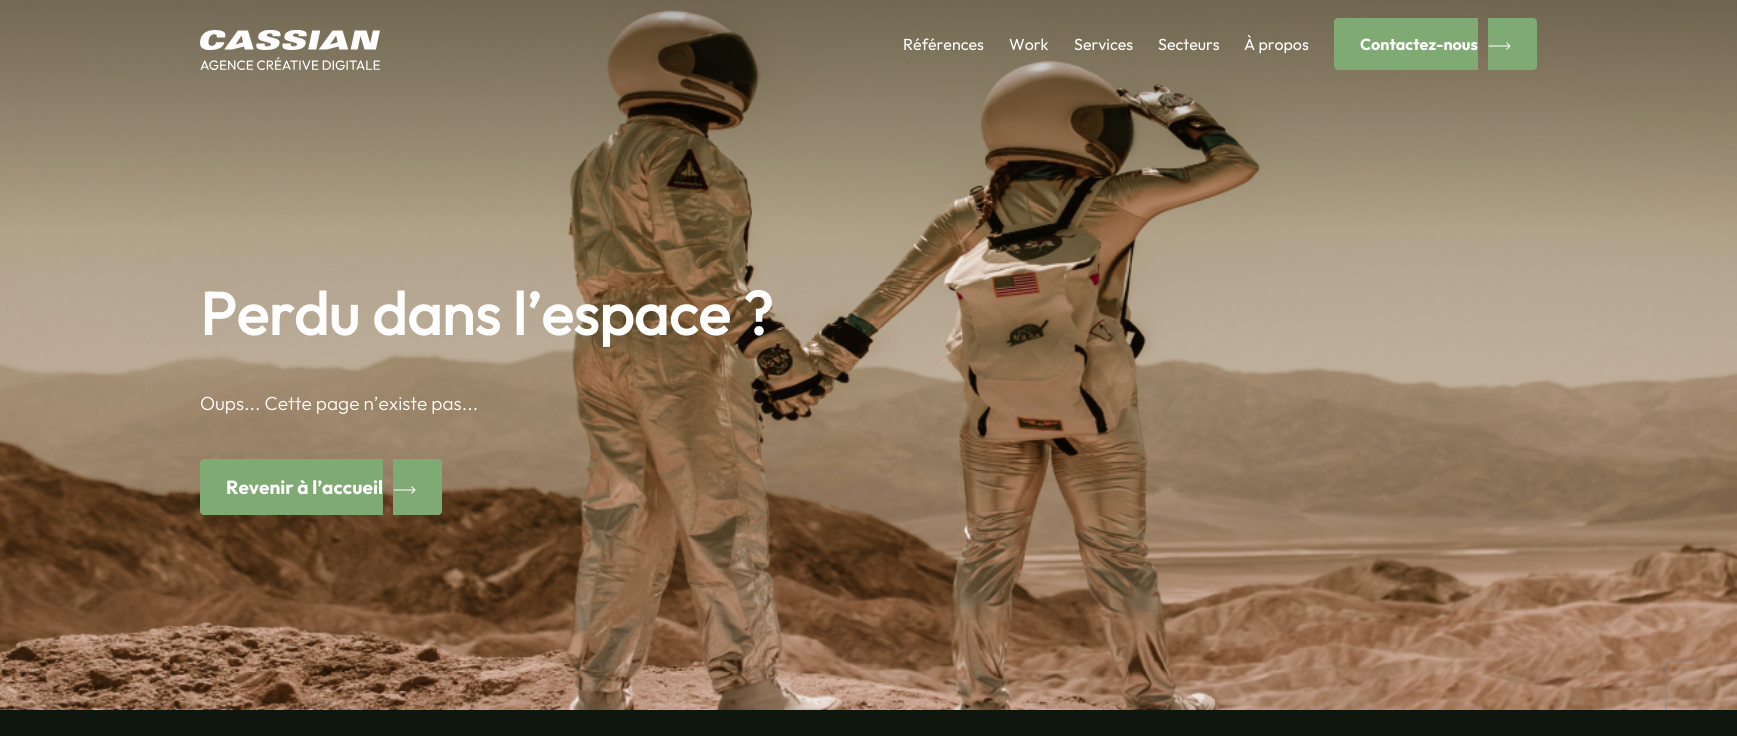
import math
import cairo

surface = cairo.ImageSurface(cairo.Format.RGB24, 1737, 736)
ctx = cairo.Context(surface)
options = cairo.FontOptions()
options.set_hint_metrics(cairo.HintMetrics.OFF)
options.set_hint_style(cairo.HintStyle.NONE)
ctx.set_font_options(options)
ctx.set_miter_limit(4)


def ink(r, g, b):
    ctx.set_source_rgb(r / 255, g / 255, b / 255)


def write(x, y, s, family, size, color, bold=False, italic=False):
    ctx.select_font_face(family, cairo.FontSlant.ITALIC if italic else cairo.FontSlant.NORMAL, cairo.FontWeight.BOLD if bold else cairo.FontWeight.NORMAL)
    ctx.set_font_size(size)
    ink(*color)
    ctx.move_to(x, y)
    ctx.show_text(s)


def block(x, y, w, h, *color):
    ink(*color)
    ctx.rectangle(x, y, w, h)
    ctx.fill()


def round_path(x, y, w, h, r):
    ctx.new_sub_path()
    for i, (u, v) in enumerate([(x + w - r, y + h - r), (x + r, y + h - r), (x + r, y + r), (x + w - r, y + r)]):
        ctx.arc(u, v, r, i * math.pi / 2, (i + 1) * math.pi / 2)
    ctx.close_path()


def blur_box(x, y, w, h, r, blur, alpha):
    ctx.push_group_with_content(cairo.Content.ALPHA)
    ctx.set_operator(cairo.Operator.SOURCE)
    for i in range(15, -16, -2):
        e = blur * i / 6
        if min(w, h) + 2 * e > 0:
            ctx.set_source_rgba(0, 0, 0, alpha * math.erfc((i - 1) / 8.5) / 2)
            round_path(x - e, y - e, w + 2 * e, h + 2 * e, max(0, min(r + e + blur * .6, min(w, h) / 2 + e)))
            ctx.fill()
    ctx.mask(ctx.pop_group())


def paste(path, x, y, w, h):
    ctx.save()
    ctx.set_source_surface(cairo.ImageSurface.create_from_png(path), x, y)
    ctx.rectangle(x, y, w, h)
    ctx.fill()
    ctx.restore()


s1 = dict(family="Outfit", size=16, color=(255, 255, 255))
s2 = dict(family="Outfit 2", size=16, color=(255, 255, 255), bold=True)
s3 = dict(family="Outfit", size=60, color=(255, 255, 255), bold=True)
s4 = dict(family="Outfit Light", size=19, color=(255, 255, 255))
s5 = dict(family="Outfit 2", size=19, color=(255, 255, 255), bold=True)

ink(255, 255, 255)
ctx.paint()
paste("pic3.png", 0, 0, 1737, 710)
paste("pic1.png", 200, 30, 180, 40)
write(903, 50, "Références", **s1)
write(1009, 50, "Work", **s1)
write(1074, 50, "Services", **s1)
write(1158, 50, "Secteurs", **s1)
write(1244, 50, "À propos", **s1)
ink(128, 170, 116)
ctx.new_path()
ctx.move_to(1339, 18)
ctx.line_to(1478, 18)
ctx.line_to(1478, 70)
ctx.line_to(1339, 70)
ctx.curve_to(1336, 70, 1334, 68, 1334, 65)
ctx.line_to(1334, 23)
ctx.curve_to(1334, 20, 1336, 18, 1339, 18)
ctx.close_path()
ctx.fill()
ctx.set_fill_rule(cairo.FillRule.EVEN_ODD)
ctx.new_path()
ctx.move_to(1339, 18)
ctx.line_to(1478, 18)
ctx.line_to(1478, 70)
ctx.line_to(1339, 70)
ctx.curve_to(1336, 70, 1334, 68, 1334, 65)
ctx.line_to(1334, 23)
ctx.curve_to(1334, 20, 1336, 18, 1339, 18)
ctx.close_path()
ctx.move_to(1339, 19)
ctx.line_to(1478, 19)
ctx.line_to(1478, 69)
ctx.line_to(1339, 69)
ctx.curve_to(1337, 69, 1335, 67, 1335, 65)
ctx.line_to(1335, 23)
ctx.curve_to(1335, 21, 1337, 19, 1339, 19)
ctx.close_path()
ctx.fill()
write(1360, 50, "Contactez-nous", **s2)
ink(128, 170, 116)
ctx.new_path()
ctx.move_to(1488, 18)
ctx.line_to(1532, 18)
ctx.curve_to(1535, 18, 1537, 20, 1537, 23)
ctx.line_to(1537, 65)
ctx.curve_to(1537, 68, 1535, 70, 1532, 70)
ctx.line_to(1488, 70)
ctx.close_path()
ctx.fill()
ctx.new_path()
ctx.move_to(1488, 18)
ctx.line_to(1532, 18)
ctx.curve_to(1535, 18, 1537, 20, 1537, 23)
ctx.line_to(1537, 65)
ctx.curve_to(1537, 68, 1535, 70, 1532, 70)
ctx.line_to(1488, 70)
ctx.close_path()
ctx.move_to(1488, 19)
ctx.line_to(1532, 19)
ctx.curve_to(1534, 19, 1536, 21, 1536, 23)
ctx.line_to(1536, 65)
ctx.curve_to(1536, 67, 1534, 69, 1532, 69)
ctx.line_to(1488, 69)
ctx.close_path()
ctx.fill()
paste("pic2.png", 1488, 42, 23, 8)
write(200, 335, "Perdu dans l’espace ?", **s3)
write(200, 410, "Oups... Cette page n’existe pas...", **s4)
ink(128, 170, 116)
ctx.new_path()
ctx.move_to(205, 459)
ctx.line_to(383, 459)
ctx.line_to(383, 515)
ctx.line_to(205, 515)
ctx.curve_to(202, 515, 200, 513, 200, 510)
ctx.line_to(200, 464)
ctx.curve_to(200, 461, 202, 459, 205, 459)
ctx.close_path()
ctx.fill()
ctx.new_path()
ctx.move_to(205, 459)
ctx.line_to(383, 459)
ctx.line_to(383, 515)
ctx.line_to(205, 515)
ctx.curve_to(202, 515, 200, 513, 200, 510)
ctx.line_to(200, 464)
ctx.curve_to(200, 461, 202, 459, 205, 459)
ctx.close_path()
ctx.move_to(205, 460)
ctx.line_to(383, 460)
ctx.line_to(383, 514)
ctx.line_to(205, 514)
ctx.curve_to(203, 514, 201, 512, 201, 510)
ctx.line_to(201, 464)
ctx.curve_to(201, 462, 203, 460, 205, 460)
ctx.close_path()
ctx.fill()
write(226, 494, "Revenir à l’accueil", **s5)
ink(128, 170, 116)
ctx.new_path()
ctx.move_to(393, 459)
ctx.line_to(437, 459)
ctx.curve_to(440, 459, 442, 461, 442, 464)
ctx.line_to(442, 510)
ctx.curve_to(442, 513, 440, 515, 437, 515)
ctx.line_to(393, 515)
ctx.close_path()
ctx.fill()
ctx.new_path()
ctx.move_to(393, 459)
ctx.line_to(437, 459)
ctx.curve_to(440, 459, 442, 461, 442, 464)
ctx.line_to(442, 510)
ctx.curve_to(442, 513, 440, 515, 437, 515)
ctx.line_to(393, 515)
ctx.close_path()
ctx.move_to(393, 460)
ctx.line_to(437, 460)
ctx.curve_to(439, 460, 441, 462, 441, 464)
ctx.line_to(441, 510)
ctx.curve_to(441, 512, 439, 514, 437, 514)
ctx.line_to(393, 514)
ctx.close_path()
ctx.fill()
paste("pic2.png", 393, 486, 23, 8)
ctx.save()
ctx.new_path()
ctx.move_to(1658, 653)
ctx.line_to(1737, 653)
ctx.line_to(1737, 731)
ctx.line_to(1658, 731)
ctx.close_path()
ctx.move_to(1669, 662)
ctx.line_to(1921, 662)
ctx.curve_to(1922, 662, 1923, 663, 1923, 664)
ctx.line_to(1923, 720)
ctx.curve_to(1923, 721, 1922, 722, 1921, 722)
ctx.line_to(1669, 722)
ctx.curve_to(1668, 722, 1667, 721, 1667, 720)
ctx.line_to(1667, 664)
ctx.curve_to(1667, 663, 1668, 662, 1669, 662)
ctx.close_path()
ctx.clip()
ink(128, 128, 128)
blur_box(1667, 662, 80, 60, 2, 2.5, 1)
ctx.restore()
block(0, 710, 1737, 26, 14, 22, 14)
surface.write_to_png("screenshot.png")
